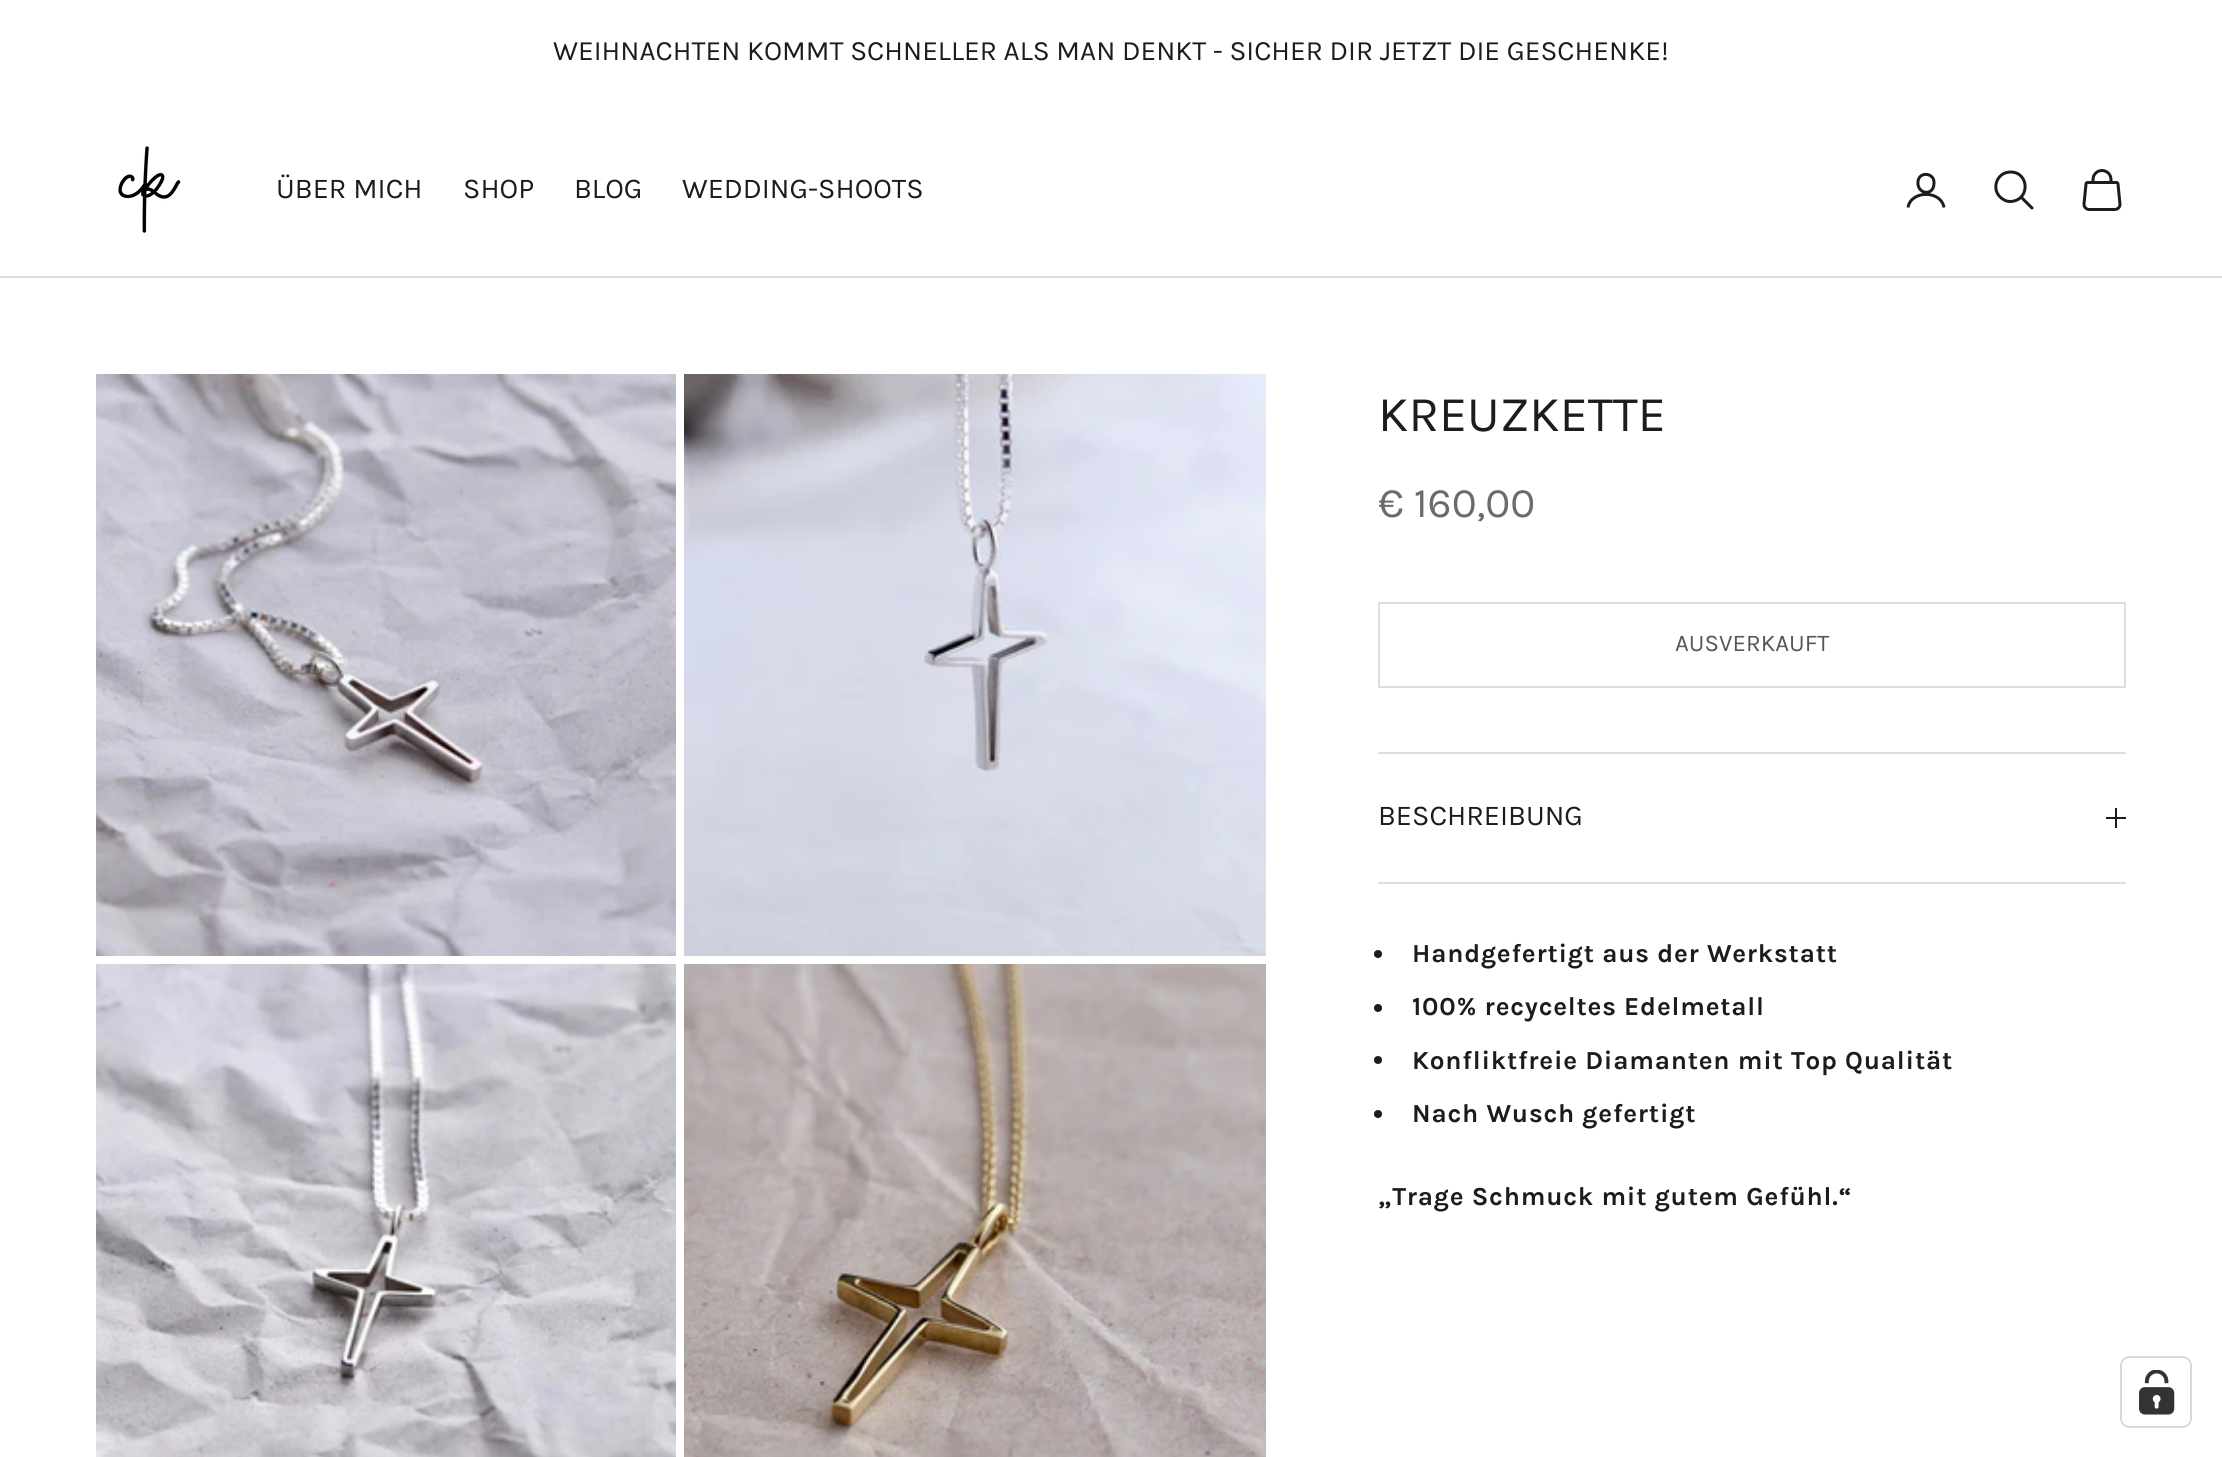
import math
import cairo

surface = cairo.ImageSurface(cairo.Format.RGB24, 2222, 1457)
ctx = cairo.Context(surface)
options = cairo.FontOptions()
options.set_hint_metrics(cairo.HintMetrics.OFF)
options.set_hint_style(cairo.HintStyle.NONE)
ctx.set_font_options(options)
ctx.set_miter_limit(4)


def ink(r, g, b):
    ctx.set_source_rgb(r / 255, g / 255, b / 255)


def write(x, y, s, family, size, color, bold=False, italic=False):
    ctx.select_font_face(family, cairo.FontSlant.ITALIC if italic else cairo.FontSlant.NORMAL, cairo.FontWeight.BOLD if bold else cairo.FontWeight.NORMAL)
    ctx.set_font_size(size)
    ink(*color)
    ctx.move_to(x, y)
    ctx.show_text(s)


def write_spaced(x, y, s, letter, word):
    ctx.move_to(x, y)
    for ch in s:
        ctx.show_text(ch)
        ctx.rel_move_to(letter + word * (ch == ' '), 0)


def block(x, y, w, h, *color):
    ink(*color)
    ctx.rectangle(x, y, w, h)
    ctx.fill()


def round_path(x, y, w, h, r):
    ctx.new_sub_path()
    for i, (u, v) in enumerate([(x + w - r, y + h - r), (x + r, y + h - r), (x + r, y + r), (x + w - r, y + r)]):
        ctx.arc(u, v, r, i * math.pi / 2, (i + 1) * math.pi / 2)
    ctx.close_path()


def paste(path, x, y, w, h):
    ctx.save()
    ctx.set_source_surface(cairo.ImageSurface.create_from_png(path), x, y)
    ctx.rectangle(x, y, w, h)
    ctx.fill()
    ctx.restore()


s1 = dict(family="Karla", size=28, color=(28, 28, 28))
s2 = dict(family="Karla", size=28.75, color=(28, 28, 28))
s3 = dict(family="Karla", size=50, color=(28, 28, 28))
s4 = dict(family="Karla", size=42, color=(107, 107, 107))
s5 = dict(family="Karla", size=24, color=(86, 84, 84))

ink(255, 255, 255)
ctx.paint()
write(553, 60, "WEIHNACHTEN KOMMT SCHNELLER ALS MAN DENKT - SICHER DIR JETZT DIE GESCHENKE!", **s1)
block(0, 276, 2222, 2, 221, 221, 221)
paste("pic1.png", 118, 146, 63, 87)
write(276, 198, "ÜBER MICH", **s2)
write(463, 198, "SHOP", **s2)
write(574, 198, "BLOG", **s2)
write(682, 198, "WEDDING-SHOOTS", **s2)
ctx.new_path()
ctx.move_to(1934, 183.5)
ctx.curve_to(1933.5, 197, 1916.5, 194, 1918, 181.5)
ctx.curve_to(1919, 171, 1935, 172.5, 1934, 183.5)
ctx.close_path()
ctx.set_line_width(3)
ctx.set_line_cap(cairo.LineCap.ROUND)
ctx.set_line_join(cairo.LineJoin.ROUND)
ctx.stroke()
ctx.new_path()
ctx.move_to(1908, 207.5)
ctx.curve_to(1911, 190, 1941, 190, 1944, 207.5)
ctx.set_line_cap(cairo.LineCap.BUTT)
ctx.set_line_join(cairo.LineJoin.MITER)
ctx.stroke()
ctx.new_path()
ctx.move_to(2010.5, 172)
ctx.curve_to(1995.5, 172, 1990, 192, 2003.5, 199.5)
ctx.curve_to(2005.5, 201, 2008, 201.5, 2010.5, 201.5)
ctx.curve_to(2030.5, 200.5, 2029.5, 172, 2010.5, 172)
ctx.close_path()
ctx.stroke()
ctx.new_path()
ctx.move_to(2021.5, 197.5)
ctx.line_to(2032, 208)
ctx.set_line_cap(cairo.LineCap.ROUND)
ctx.stroke()
paste("pic2.png", 2082, 169, 40, 42)
paste("pic3.png", 96, 374, 580, 582)
paste("pic4.png", 684, 374, 582, 582)
paste("pic5.png", 96, 964, 580, 493)
paste("pic6.png", 684, 964, 582, 493)
write(1378, 431, "KREUZKETTE", **s3)
write(1378, 517, "€ 160,00", **s4)
ctx.rectangle(1379, 603, 746, 84)
ink(221, 221, 221)
ctx.set_line_width(2)
ctx.set_line_cap(cairo.LineCap.BUTT)
ctx.stroke()
write(1675, 651, "AUSVERKAUFT", **s5)
block(1378, 752, 748, 2, 221, 221, 221)
block(1378, 882, 748, 2, 221, 221, 221)
write(1378, 825, "BESCHREIBUNG", **s2)
block(2115, 808, 2, 20, 28, 28, 28)
block(2106, 817, 20, 2, 28, 28, 28)
ctx.new_path()
ctx.arc(1378, 954, 4, 0, 2 * math.pi)
ctx.fill()
ctx.select_font_face("Karla", cairo.FontSlant.NORMAL, cairo.FontWeight.BOLD)
ctx.set_font_size(26)
write_spaced(1412, 962, "Handgefertigt aus der Werkstatt", 0.8, 0)
ctx.new_path()
ctx.arc(1378, 1008, 4, 0, 2 * math.pi)
ctx.fill()
write_spaced(1412, 1015, "100% recyceltes Edelmetall", 0.8, 0)
ctx.new_path()
ctx.arc(1378, 1060, 4, 0, 2 * math.pi)
ctx.fill()
write_spaced(1412, 1069, "Konfliktfreie Diamanten mit Top Qualität", 0.8, 0)
ctx.new_path()
ctx.arc(1378, 1114, 4, 0, 2 * math.pi)
ctx.fill()
write_spaced(1412, 1122, "Nach Wusch gefertigt", 0.8, 0)
write_spaced(1378, 1205, "„Trage Schmuck mit gutem Gefühl.“", 0.8, 0)
round_path(2121, 1357, 70, 70, 9)
ink(217, 217, 217)
ctx.stroke()
ink(255, 255, 255)
round_path(2122, 1358, 68, 68, 8)
ctx.fill()
paste("pic7.png", 2139, 1370, 36, 45)
surface.write_to_png("screenshot.png")
